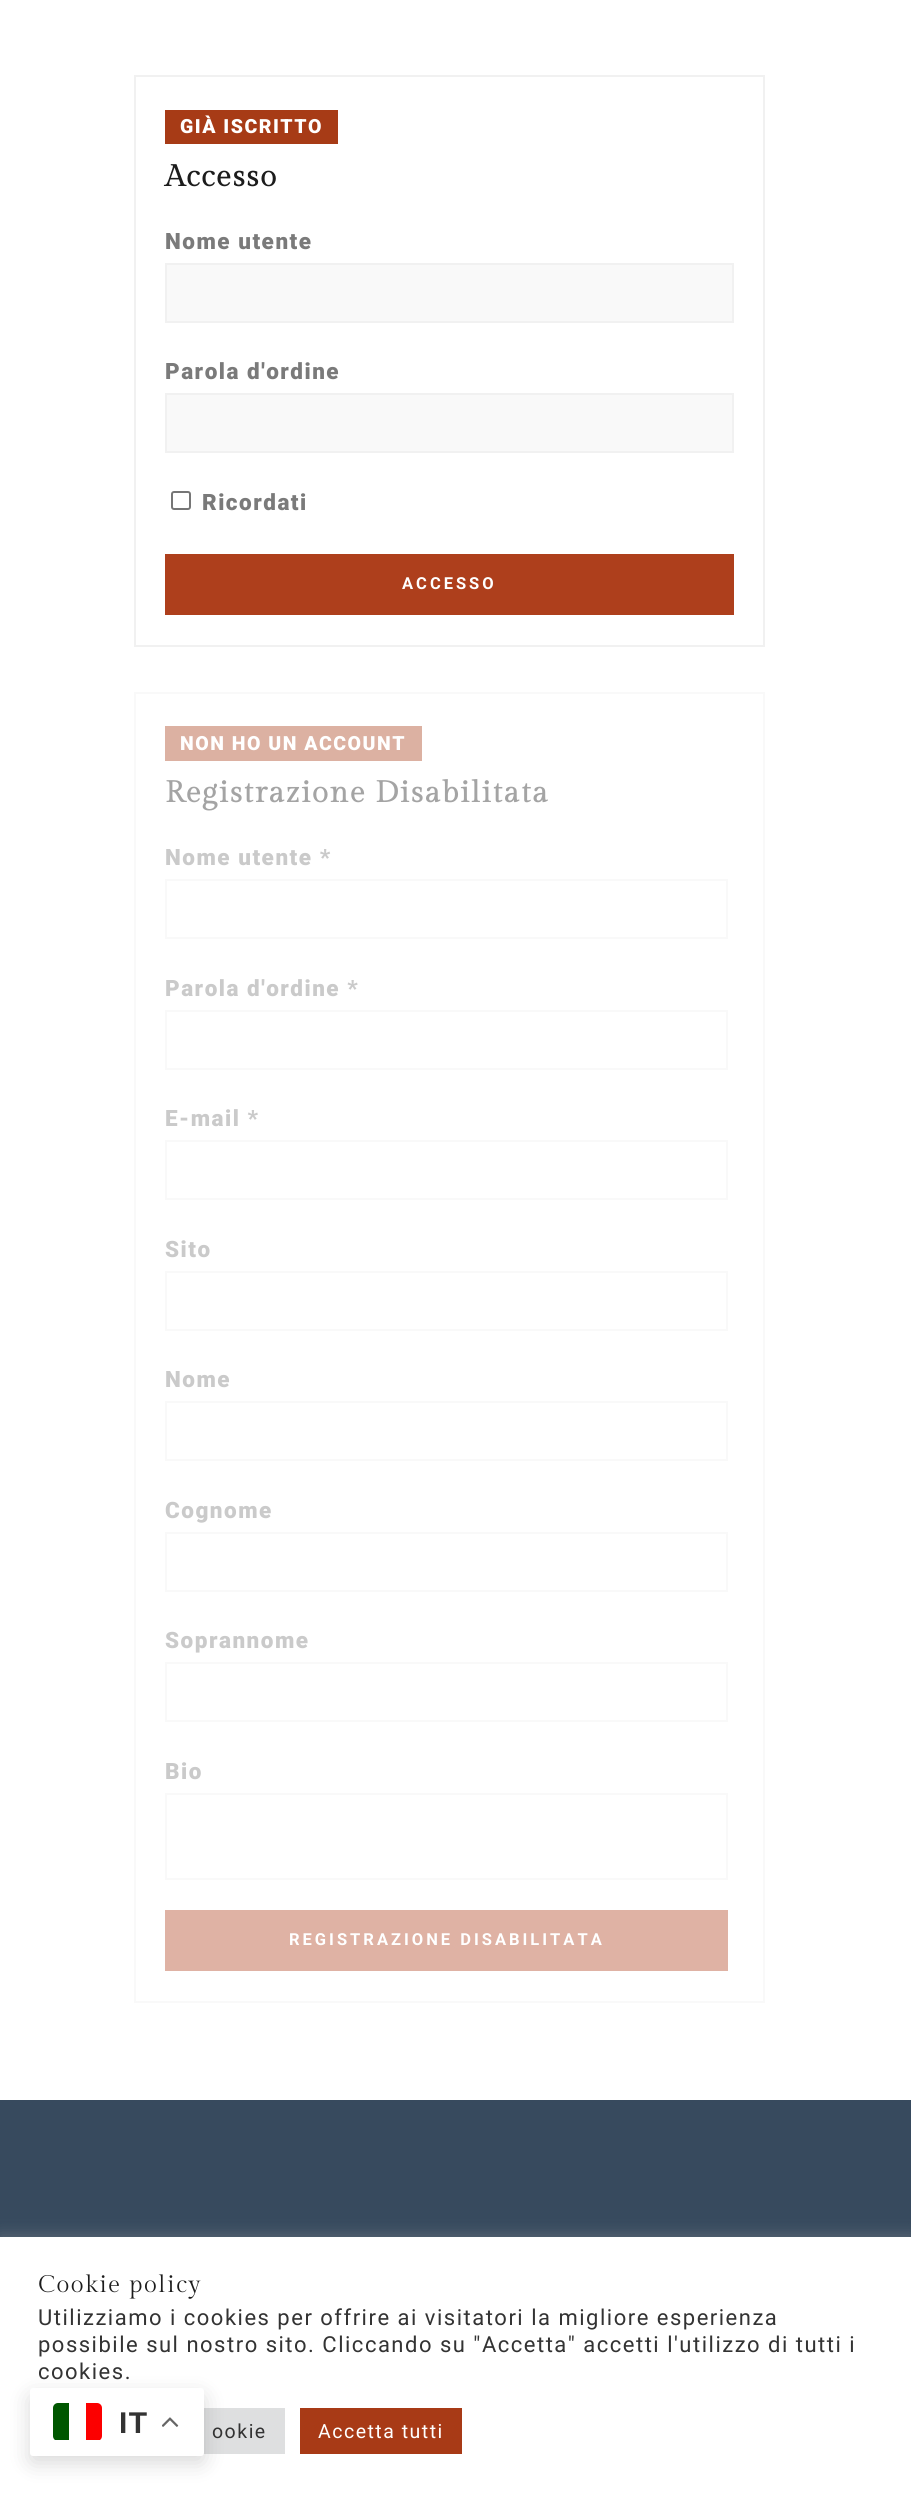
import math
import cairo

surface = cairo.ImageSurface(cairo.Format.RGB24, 911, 2498)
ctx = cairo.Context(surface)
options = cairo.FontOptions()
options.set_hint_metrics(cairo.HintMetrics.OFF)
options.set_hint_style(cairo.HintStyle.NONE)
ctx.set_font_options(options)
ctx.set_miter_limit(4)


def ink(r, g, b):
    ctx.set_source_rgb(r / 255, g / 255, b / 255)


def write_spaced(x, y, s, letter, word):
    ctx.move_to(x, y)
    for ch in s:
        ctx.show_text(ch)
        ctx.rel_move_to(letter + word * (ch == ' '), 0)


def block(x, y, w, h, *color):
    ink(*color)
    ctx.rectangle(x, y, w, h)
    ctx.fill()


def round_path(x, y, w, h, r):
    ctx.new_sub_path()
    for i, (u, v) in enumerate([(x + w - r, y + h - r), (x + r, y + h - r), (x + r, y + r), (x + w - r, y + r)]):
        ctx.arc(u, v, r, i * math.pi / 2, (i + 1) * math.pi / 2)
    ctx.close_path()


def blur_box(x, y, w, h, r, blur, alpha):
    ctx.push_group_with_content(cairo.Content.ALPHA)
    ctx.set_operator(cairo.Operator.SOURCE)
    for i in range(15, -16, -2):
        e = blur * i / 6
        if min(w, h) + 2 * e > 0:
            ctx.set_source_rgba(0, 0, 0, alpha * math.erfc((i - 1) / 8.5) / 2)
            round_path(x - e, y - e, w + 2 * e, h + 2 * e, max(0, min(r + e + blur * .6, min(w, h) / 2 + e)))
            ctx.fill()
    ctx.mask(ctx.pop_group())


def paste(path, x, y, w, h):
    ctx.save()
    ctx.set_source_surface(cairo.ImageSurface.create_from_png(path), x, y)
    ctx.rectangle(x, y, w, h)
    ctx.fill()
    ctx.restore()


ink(255, 255, 255)
ctx.paint()
ctx.rectangle(135, 76, 629, 570)
ink(241, 241, 241)
ctx.stroke()
block(165, 110, 173, 34, 167, 59, 22)
ctx.select_font_face("Roboto Black")
ctx.set_font_size(19.5)
ink(255, 255, 255)
write_spaced(180, 133, "GIÀ ISCRITTO", 1.5, 0)
ctx.select_font_face("Gilda Display", cairo.FontSlant.NORMAL, cairo.FontWeight.BOLD)
ctx.set_font_size(30)
ink(28, 28, 28)
write_spaced(165, 186, "Accesso", 1.5, 0)
ctx.select_font_face("Roboto Black")
ctx.set_font_size(22.5)
ink(122, 122, 122)
write_spaced(165, 249, "Nome utente", 1.5, 0)
ink(249, 249, 249)
ctx.rectangle(166, 264, 567, 58)
ctx.fill_preserve()
ink(241, 241, 241)
ctx.stroke()
ink(122, 122, 122)
write_spaced(165, 379, "Parola d'ordine", 1.5, 0)
ink(249, 249, 249)
ctx.rectangle(166, 394, 567, 58)
ctx.fill_preserve()
ink(241, 241, 241)
ctx.stroke()
round_path(172, 492, 18, 17, 2)
ink(118, 118, 118)
ctx.stroke()
ink(122, 122, 122)
write_spaced(202, 510, "Ricordati", 1.5, 0)
block(165, 554, 569, 61, 174, 63, 28)
ctx.select_font_face("Roboto", cairo.FontSlant.NORMAL, cairo.FontWeight.BOLD)
ctx.set_font_size(16.5)
ink(255, 255, 255)
write_spaced(402, 589, "ACCESSO", 3, 0)
ctx.rectangle(135, 693, 629, 1309)
ink(249, 249, 249)
ctx.stroke()
block(165, 726, 257, 35, 220, 177, 162)
ctx.select_font_face("Roboto Black")
ctx.set_font_size(19.5)
ink(255, 255, 255)
write_spaced(180, 750, "NON HO UN ACCOUNT", 1.5, 0)
ctx.select_font_face("Gilda Display", cairo.FontSlant.NORMAL, cairo.FontWeight.BOLD)
ctx.set_font_size(30)
ink(164, 164, 164)
write_spaced(165, 802, "Registrazione Disabilitata", 1.5, 0)
ctx.select_font_face("Roboto Black")
ctx.set_font_size(22.5)
ink(202, 202, 202)
write_spaced(165, 865, "Nome utente *", 1.5, 0)
ctx.rectangle(166, 880, 561, 58)
ink(249, 249, 249)
ctx.stroke()
ink(202, 202, 202)
write_spaced(165, 996, "Parola d'ordine *", 1.5, 0)
ctx.rectangle(166, 1011, 561, 58)
ink(249, 249, 249)
ctx.stroke()
ink(202, 202, 202)
write_spaced(165, 1126, "E-mail *", 1.5, 0)
ctx.rectangle(166, 1141, 561, 58)
ink(249, 249, 249)
ctx.stroke()
ink(202, 202, 202)
write_spaced(165, 1257, "Sito", 1.5, 0)
ctx.rectangle(166, 1272, 561, 58)
ink(249, 249, 249)
ctx.stroke()
ink(202, 202, 202)
write_spaced(165, 1387, "Nome", 1.5, 0)
ctx.rectangle(166, 1402, 561, 58)
ink(249, 249, 249)
ctx.stroke()
ink(202, 202, 202)
write_spaced(165, 1518, "Cognome", 1.5, 0)
ctx.rectangle(166, 1533, 561, 58)
ink(249, 249, 249)
ctx.stroke()
ink(202, 202, 202)
write_spaced(165, 1648, "Soprannome", 1.5, 0)
ctx.rectangle(166, 1663, 561, 58)
ink(249, 249, 249)
ctx.stroke()
ink(202, 202, 202)
write_spaced(165, 1779, "Bio", 1.5, 0)
ctx.rectangle(166, 1794, 561, 85)
ink(249, 249, 249)
ctx.stroke()
block(165, 1910, 563, 61, 223, 178, 164)
ctx.select_font_face("Roboto", cairo.FontSlant.NORMAL, cairo.FontWeight.BOLD)
ctx.set_font_size(16.5)
ink(255, 255, 255)
write_spaced(289, 1945, "REGISTRAZIONE DISABILITATA", 3, 0)
block(0, 2100, 911, 137, 55, 74, 94)
ink(172, 171, 171)
blur_box(0, 2235, 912, 263, 0, 7.5, 0.3)
block(0, 2237, 911, 261, 255, 255, 255)
ctx.select_font_face("Gilda Display")
ctx.set_font_size(24)
ink(28, 28, 28)
write_spaced(38, 2292, "Cookie policy", 1.5, 0)
ctx.select_font_face("Roboto")
ctx.set_font_size(22)
ink(51, 51, 51)
write_spaced(38, 2325, "Utilizziamo i cookies per offrire ai visitatori la migliore esperienza", 1.5, 0)
write_spaced(38, 2352, "possibile sul nostro sito. Cliccando su \"Accetta\" accetti l'utilizzo di tutti i", 1.5, 0)
write_spaced(38, 2379, "cookies.", 1.5, 0)
block(203, 2408, 82, 46, 222, 223, 224)
ctx.set_font_size(19.5)
ink(51, 51, 51)
write_spaced(212, 2438, "ookie", 1.5, 0)
block(300, 2408, 162, 46, 168, 58, 22)
ink(255, 255, 255)
write_spaced(318, 2438, "Accetta tutti", 1.5, 0)
ink(0, 0, 0)
blur_box(30, 2396, 174, 67, 3, 11, 0.15)
ink(255, 255, 255)
round_path(30, 2388, 174, 68, 3)
ctx.fill()
ctx.save()
round_path(53, 2403, 49, 38, 5)
ctx.clip()
ink(0, 87, 0)
ctx.new_path()
ctx.move_to(58, 2403)
ctx.line_to(69, 2403)
ctx.line_to(69, 2440)
ctx.line_to(53, 2440)
ctx.line_to(53, 2408)
ctx.curve_to(53, 2405, 55, 2403, 58, 2403)
ctx.close_path()
ctx.fill()
ink(252, 0, 0)
ctx.new_path()
ctx.move_to(86, 2403)
ctx.line_to(97, 2403)
ctx.curve_to(100, 2403, 102, 2405, 102, 2408)
ctx.line_to(102, 2440)
ctx.line_to(86, 2440)
ctx.close_path()
ctx.fill()
ctx.restore()
ctx.select_font_face("Liberation Sans", cairo.FontSlant.NORMAL, cairo.FontWeight.BOLD)
ctx.set_font_size(30)
ink(51, 51, 51)
write_spaced(119, 2433, "IT", 1.5, 0)
paste("pic1.png", 162, 2417, 17, 10)
surface.write_to_png("screenshot.png")
